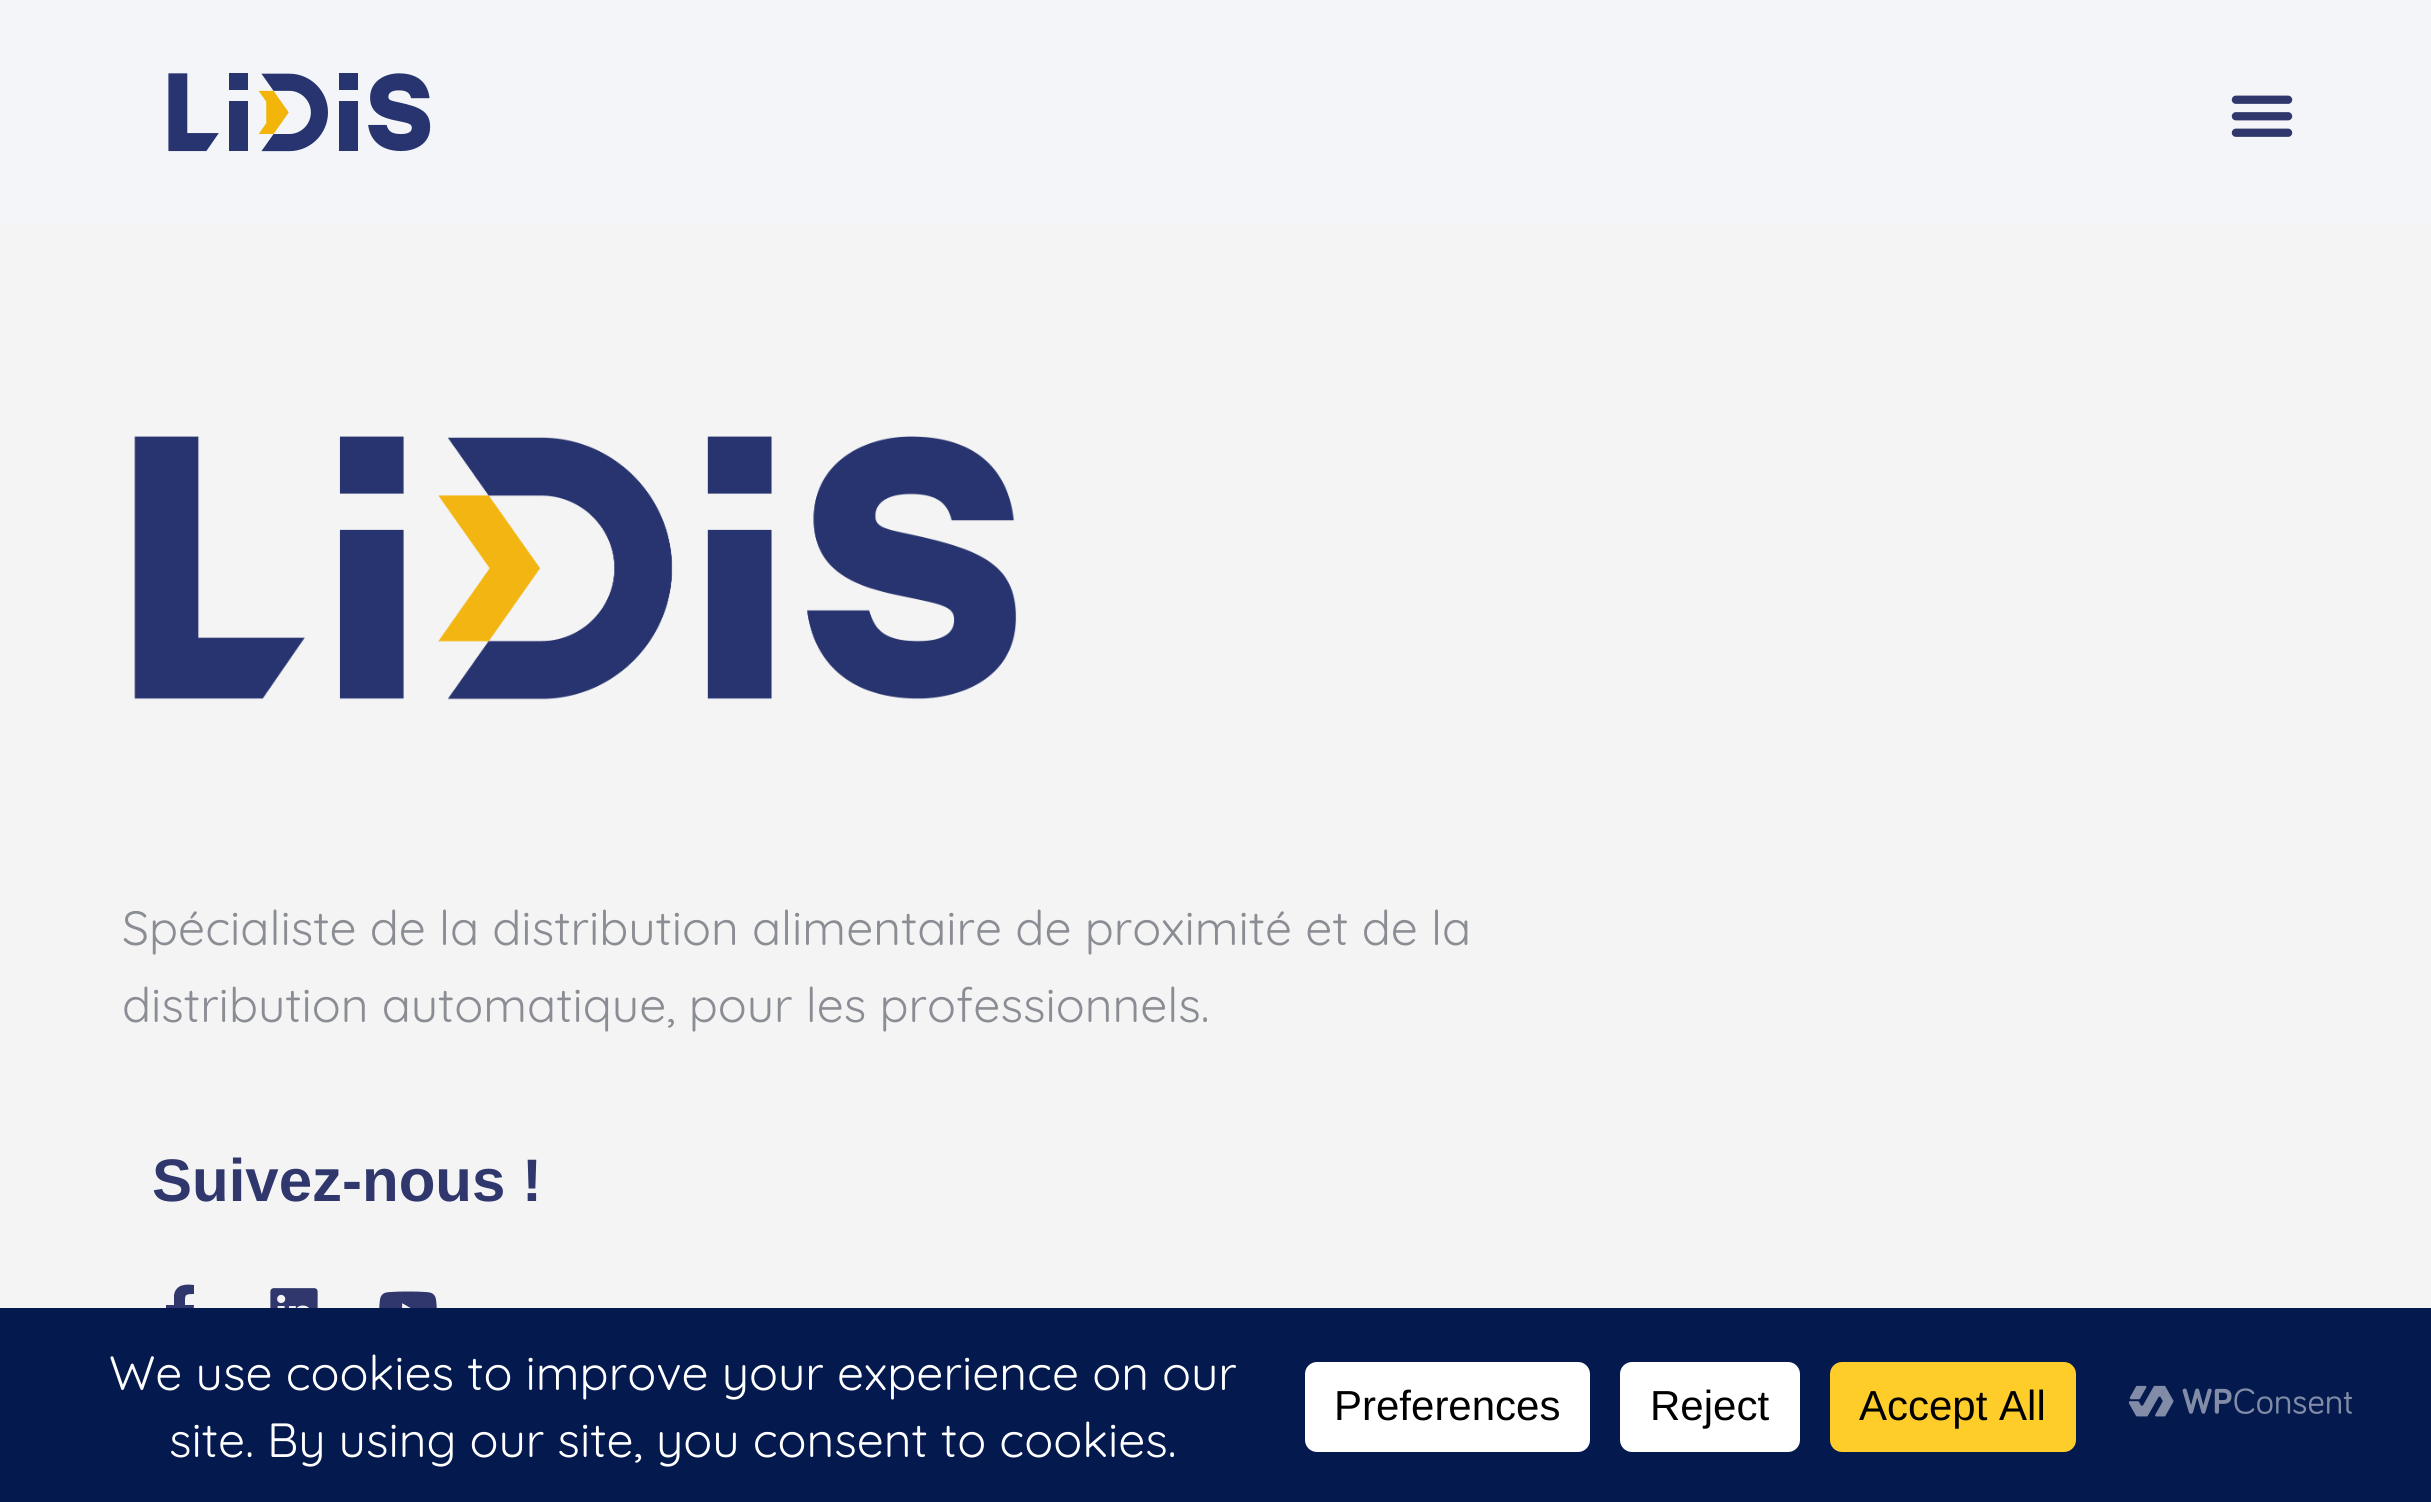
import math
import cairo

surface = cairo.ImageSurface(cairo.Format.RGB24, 2431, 1502)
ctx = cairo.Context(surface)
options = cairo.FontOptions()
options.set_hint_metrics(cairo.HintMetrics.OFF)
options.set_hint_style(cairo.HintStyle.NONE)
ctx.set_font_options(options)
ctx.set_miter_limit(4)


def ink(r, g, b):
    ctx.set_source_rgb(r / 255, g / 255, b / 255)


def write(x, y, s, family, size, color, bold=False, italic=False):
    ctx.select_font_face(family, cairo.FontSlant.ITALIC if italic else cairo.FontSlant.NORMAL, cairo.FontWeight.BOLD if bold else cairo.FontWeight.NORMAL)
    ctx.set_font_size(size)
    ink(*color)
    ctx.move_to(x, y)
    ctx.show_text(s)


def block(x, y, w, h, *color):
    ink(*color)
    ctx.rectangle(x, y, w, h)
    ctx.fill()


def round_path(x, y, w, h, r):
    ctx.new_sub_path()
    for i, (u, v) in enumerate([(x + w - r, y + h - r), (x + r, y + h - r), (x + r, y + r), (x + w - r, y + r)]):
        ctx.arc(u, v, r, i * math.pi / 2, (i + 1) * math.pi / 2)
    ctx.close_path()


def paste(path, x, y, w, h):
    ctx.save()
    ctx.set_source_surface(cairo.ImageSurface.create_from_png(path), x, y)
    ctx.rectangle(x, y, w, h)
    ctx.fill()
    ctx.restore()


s1 = dict(family="Quicksand", size=48, color=(139, 141, 148))
s2 = dict(family="Liberation Sans", size=60, color=(47, 55, 109), bold=True)
s3 = dict(family="Quicksand", size=48, color=(255, 255, 255))
s4 = dict(family="Liberation Sans", size=42, color=(0, 0, 0))

ink(244, 244, 244)
ctx.paint()
block(0, 0, 2431, 225, 243, 245, 248)
paste("pic1.png", 168, 73, 263, 79)
paste("pic2.png", 2231, 95, 62, 42)
paste("pic3.png", 134, 436, 883, 264)
write(122, 945, "Spécialiste de la distribution alimentaire de proximité et de la", **s1)
write(122, 1022, "distribution automatique, pour les professionnels.", **s1)
write(152, 1201, "Suivez-nous !", **s2)
ctx.new_path()
ctx.move_to(193, 1315)
ctx.line_to(185, 1315)
ctx.line_to(185, 1339)
ctx.line_to(174, 1339)
ctx.line_to(174, 1315)
ctx.line_to(166, 1315)
ctx.line_to(166, 1305)
ctx.line_to(174, 1305)
ctx.line_to(174, 1295)
ctx.curve_to(176, 1284, 186, 1284, 194, 1285)
ctx.line_to(194, 1294)
ctx.curve_to(184, 1294, 185, 1295, 185, 1305)
ctx.line_to(194, 1305)
ctx.close_path()
ctx.fill()
paste("pic4.png", 270, 1288, 48, 20)
paste("pic5.png", 379, 1291, 58, 17)
block(0, 1308, 2431, 194, 4, 25, 78)
write(109, 1390, "We use cookies to improve your experience on our", **s3)
write(169, 1457, "site. By using our site, you consent to cookies.", **s3)
round_path(1305, 1362, 285, 90, 12)
ctx.fill()
write(1334, 1420, "Preferences", **s4)
ink(255, 255, 255)
round_path(1620, 1362, 180, 90, 12)
ctx.fill()
write(1650, 1420, "Reject", **s4)
ink(255, 205, 42)
round_path(1830, 1362, 246, 90, 12)
ctx.fill()
write(1859, 1420, "Accept All", **s4)
paste("pic6.png", 2128, 1385, 224, 32)
surface.write_to_png("screenshot.png")
